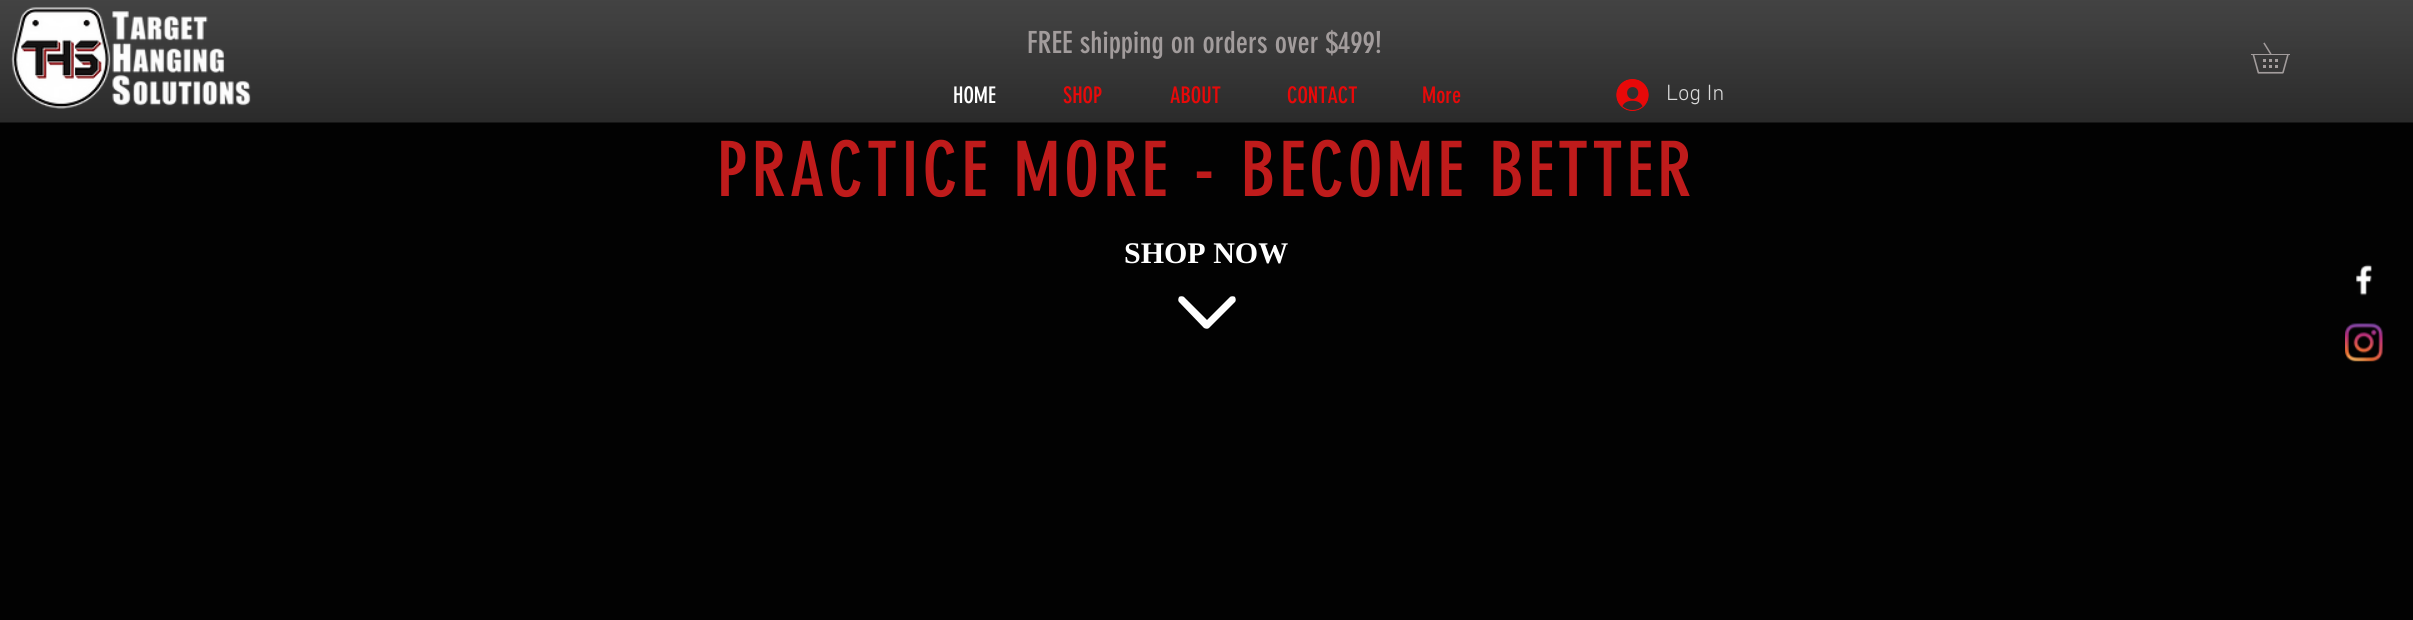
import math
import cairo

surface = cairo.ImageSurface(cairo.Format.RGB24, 2413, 620)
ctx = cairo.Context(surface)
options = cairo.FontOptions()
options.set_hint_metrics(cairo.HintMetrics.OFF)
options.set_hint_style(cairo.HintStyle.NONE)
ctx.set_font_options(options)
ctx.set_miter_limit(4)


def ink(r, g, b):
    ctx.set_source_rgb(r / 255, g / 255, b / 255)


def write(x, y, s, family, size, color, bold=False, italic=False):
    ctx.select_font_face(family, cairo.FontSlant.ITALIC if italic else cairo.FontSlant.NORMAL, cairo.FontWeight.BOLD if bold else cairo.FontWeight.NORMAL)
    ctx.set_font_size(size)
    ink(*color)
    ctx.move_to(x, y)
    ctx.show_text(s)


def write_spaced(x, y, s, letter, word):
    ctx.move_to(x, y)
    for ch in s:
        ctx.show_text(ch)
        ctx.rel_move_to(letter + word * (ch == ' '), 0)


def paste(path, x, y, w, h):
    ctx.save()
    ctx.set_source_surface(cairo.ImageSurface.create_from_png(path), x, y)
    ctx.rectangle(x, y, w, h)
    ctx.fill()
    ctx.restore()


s1 = dict(family="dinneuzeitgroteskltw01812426", size=30, color=(162, 156, 156))
s2 = dict(family="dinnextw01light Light", size=22.5, color=(219, 219, 219))
s3 = dict(family="dinneuzeitgroteskltw01812426", size=22.5, color=(255, 255, 255))
s4 = dict(family="dinneuzeitgroteskltw01812426", size=22.5, color=(232, 9, 9))
s5 = dict(family="Liberation Serif", size=30, color=(255, 255, 255), bold=True)

ink(2, 2, 2)
ctx.paint()
paste("pic2.png", 0, 0, 2413, 123)
paste("pic1.png", 11, 7, 240, 102)
write(1027, 53, "FREE shipping on orders over $499!", **s1)
paste("pic3.png", 1616, 79, 33, 32)
write(1666, 100, "Log In", **s2)
paste("pic4.png", 2251, 42, 39, 32)
write(953, 103, "HOME", **s3)
write(1063, 103, "SHOP", **s4)
write(1170, 103, "ABOUT", **s4)
write(1287, 103, "CONTACT", **s4)
write(1422, 103, "More", **s4)
ctx.set_font_size(75)
ink(191, 27, 27)
write_spaced(717, 196, "PRACTICE MORE - BECOME BETTER", 3.75, 0)
write(1124, 263, "SHOP NOW", **s5)
ctx.new_path()
ctx.move_to(1230, 297)
ctx.line_to(1207, 320)
ctx.line_to(1184, 297)
ctx.curve_to(1183, 296, 1180, 296, 1179, 297)
ctx.curve_to(1178, 299, 1178, 301, 1179, 302)
ctx.line_to(1204, 328)
ctx.curve_to(1206, 329, 1208, 329, 1209, 328)
ctx.line_to(1235, 302)
ctx.curve_to(1236, 301, 1236, 299, 1235, 297)
ctx.curve_to(1234, 296, 1231, 296, 1230, 297)
ctx.close_path()
ctx.fill()
paste("pic5.png", 2356, 264, 16, 32)
paste("pic6.png", 2345, 323, 38, 39)
surface.write_to_png("screenshot.png")
